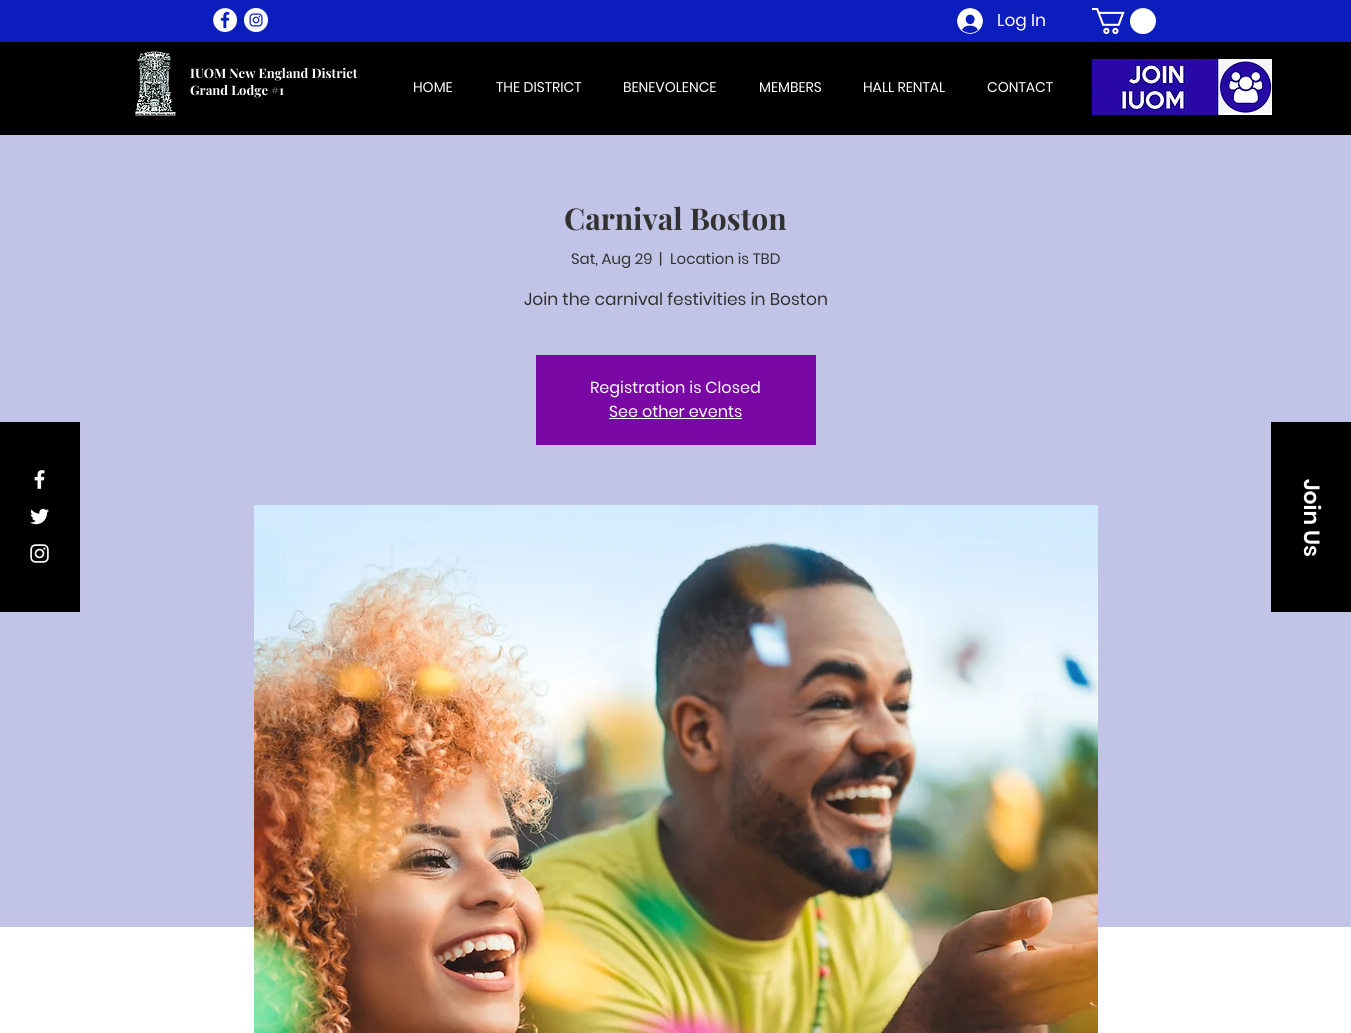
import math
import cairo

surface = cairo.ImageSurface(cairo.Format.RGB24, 1351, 1033)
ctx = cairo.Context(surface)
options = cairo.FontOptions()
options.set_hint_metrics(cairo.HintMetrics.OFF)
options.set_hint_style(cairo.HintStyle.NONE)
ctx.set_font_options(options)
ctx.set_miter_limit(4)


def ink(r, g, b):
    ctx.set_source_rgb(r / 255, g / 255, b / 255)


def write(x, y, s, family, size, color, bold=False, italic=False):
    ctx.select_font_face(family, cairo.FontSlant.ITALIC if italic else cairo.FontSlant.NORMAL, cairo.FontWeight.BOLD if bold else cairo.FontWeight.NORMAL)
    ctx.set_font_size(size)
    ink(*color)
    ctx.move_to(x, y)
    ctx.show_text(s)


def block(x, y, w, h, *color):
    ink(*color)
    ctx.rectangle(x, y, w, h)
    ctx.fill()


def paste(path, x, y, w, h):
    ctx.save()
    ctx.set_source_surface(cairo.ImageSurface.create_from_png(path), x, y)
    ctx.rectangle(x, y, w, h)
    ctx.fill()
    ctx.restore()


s1 = dict(family="Poppins", size=17, color=(255, 255, 255))
s2 = dict(family="Playfair Display", size=13, color=(255, 255, 255), bold=True)
s3 = dict(family="Poppins", size=14, color=(255, 255, 255))
s4 = dict(family="Playfair Display", size=30, color=(51, 49, 48), bold=True)
s5 = dict(family="Poppins", size=15, color=(51, 49, 48))
s6 = dict(family="Poppins", size=17, color=(51, 49, 48))
s7 = dict(family="Poppins", size=16, color=(255, 255, 255))
s8 = dict(family="Poppins SemiBold", size=22, color=(255, 255, 255))

ink(255, 255, 255)
ctx.paint()
block(0, 0, 1351, 42, 11, 29, 189)
paste("pic1.png", 213, 8, 24, 24)
paste("pic2.png", 244, 8, 24, 24)
paste("pic3.png", 957, 8, 26, 26)
write(997, 26, "Log In", **s1)
paste("pic4.png", 1092, 8, 64, 27)
block(0, 42, 1351, 93, 0, 0, 0)
paste("pic5.png", 135, 51, 41, 65)
write(190, 78, "IUOM New England District", **s2)
write(190, 95, "Grand Lodge #1", **s2)
write(413, 92, "HOME", **s3)
write(496, 92, "THE DISTRICT", **s3)
write(623, 92, "BENEVOLENCE", **s3)
write(759, 92, "MEMBERS", **s3)
write(863, 92, "HALL RENTAL", **s3)
write(987, 92, "CONTACT", **s3)
paste("pic6.png", 1092, 59, 180, 56)
block(0, 135, 1351, 792, 194, 196, 231)
write(564, 230, "Carnival Boston", **s4)
write(571, 264, "Sat, Aug 29", **s5)
write(659, 264, "|", **s5)
write(670, 264, "Location is TBD", **s5)
write(524, 305, "Join the carnival festivities in Boston", **s6)
block(536, 355, 280, 90, 122, 8, 164)
write(590, 393, "Registration is Closed", **s7)
write(609, 417, "See other events", **s7)
block(609, 418, 133, 1, 255, 255, 255)
paste("pic7.png", 254, 505, 844, 528)
block(0, 422, 80, 190, 0, 0, 0)
paste("pic8.png", 34, 470, 11, 19)
paste("pic9.png", 30, 508, 19, 17)
paste("pic10.png", 30, 544, 19, 19)
block(1271, 422, 80, 190, 0, 0, 0)
ctx.save()
ctx.translate(1304, 479)
ctx.rotate(90 * math.pi / 180)
write(0, 0, "Join Us", **s8)
ctx.restore()
surface.write_to_png("screenshot.png")
